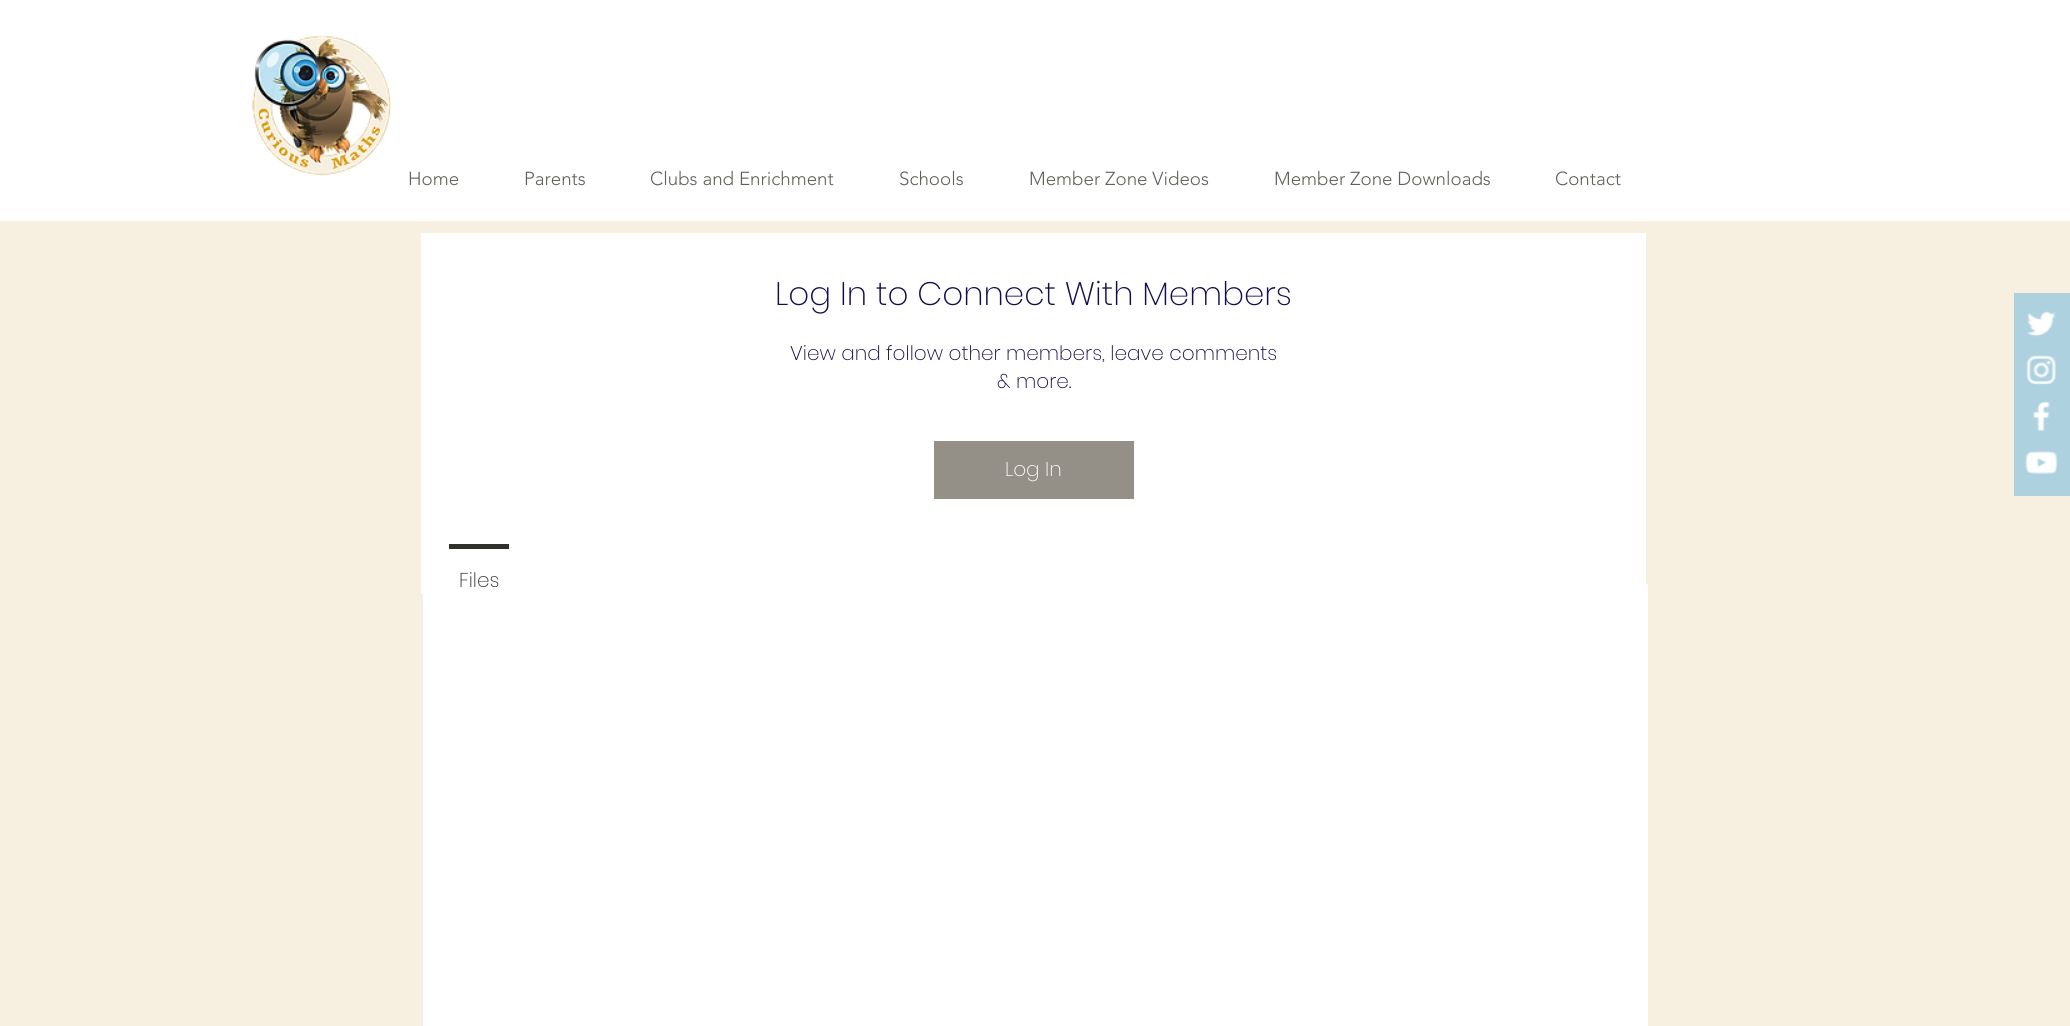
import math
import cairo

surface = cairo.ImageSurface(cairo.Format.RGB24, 2070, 1026)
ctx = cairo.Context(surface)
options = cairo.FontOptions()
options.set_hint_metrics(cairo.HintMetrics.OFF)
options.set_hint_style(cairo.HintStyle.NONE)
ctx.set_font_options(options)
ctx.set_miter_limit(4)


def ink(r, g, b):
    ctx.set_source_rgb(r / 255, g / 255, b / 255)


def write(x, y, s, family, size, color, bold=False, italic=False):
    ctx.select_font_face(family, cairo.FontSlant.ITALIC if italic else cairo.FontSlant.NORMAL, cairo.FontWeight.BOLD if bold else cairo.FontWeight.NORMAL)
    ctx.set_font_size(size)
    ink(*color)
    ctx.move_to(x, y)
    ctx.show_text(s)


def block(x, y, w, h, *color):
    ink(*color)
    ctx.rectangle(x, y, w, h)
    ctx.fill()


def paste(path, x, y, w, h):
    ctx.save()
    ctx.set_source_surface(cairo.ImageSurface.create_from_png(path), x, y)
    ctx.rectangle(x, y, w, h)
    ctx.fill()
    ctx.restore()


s1 = dict(family="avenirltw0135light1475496 Light", size=18.75, color=(99, 96, 90))
s2 = dict(family="Poppins ExtraLight", size=32.5, color=(19, 13, 76))
s3 = dict(family="Poppins ExtraLight", size=20, color=(19, 13, 76))
s4 = dict(family="Poppins ExtraLight", size=20, color=(255, 255, 255))
s5 = dict(family="Poppins ExtraLight", size=20, color=(49, 48, 45))

ink(247, 240, 225)
ctx.paint()
block(0, 0, 2070, 221, 255, 255, 255)
paste("pic1.png", 252, 35, 139, 141)
write(408, 185, "Home", **s1)
write(524, 185, "Parents", **s1)
write(650, 185, "Clubs and Enrichment", **s1)
write(899, 185, "Schools", **s1)
write(1029, 185, "Member Zone Videos", **s1)
write(1274, 185, "Member Zone Downloads", **s1)
write(1555, 185, "Contact", **s1)
block(423, 584, 1225, 442, 255, 255, 255)
block(421, 233, 1225, 361, 255, 255, 255)
write(775, 305, "Log In to Connect With Members", **s2)
write(790, 360, "View and follow other members, leave comments", **s3)
write(997, 388, "& more.", **s3)
block(934, 441, 200, 58, 148, 144, 135)
write(1005, 476, "Log In", **s4)
block(449, 544, 60, 5, 49, 48, 45)
write(459, 587, "Files", **s5)
block(2014, 293, 56, 203, 174, 209, 223)
paste("pic2.png", 2027, 311, 29, 26)
paste("pic3.png", 2026, 355, 30, 30)
paste("pic4.png", 2033, 401, 17, 31)
paste("pic5.png", 2025, 451, 33, 23)
surface.write_to_png("screenshot.png")
